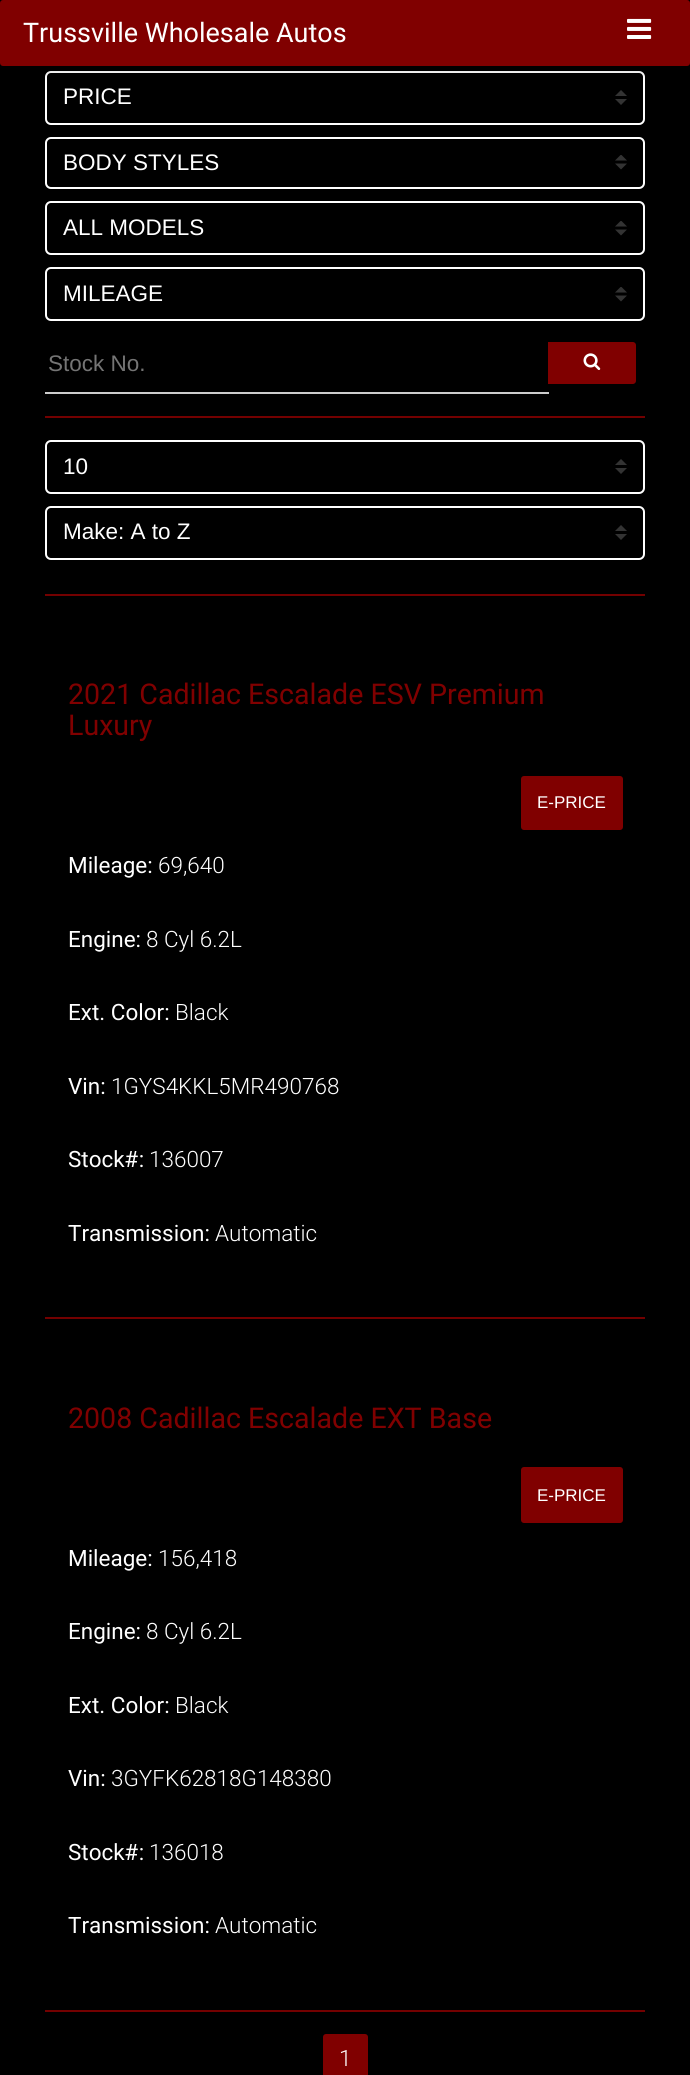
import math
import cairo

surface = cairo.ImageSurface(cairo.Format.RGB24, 690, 2075)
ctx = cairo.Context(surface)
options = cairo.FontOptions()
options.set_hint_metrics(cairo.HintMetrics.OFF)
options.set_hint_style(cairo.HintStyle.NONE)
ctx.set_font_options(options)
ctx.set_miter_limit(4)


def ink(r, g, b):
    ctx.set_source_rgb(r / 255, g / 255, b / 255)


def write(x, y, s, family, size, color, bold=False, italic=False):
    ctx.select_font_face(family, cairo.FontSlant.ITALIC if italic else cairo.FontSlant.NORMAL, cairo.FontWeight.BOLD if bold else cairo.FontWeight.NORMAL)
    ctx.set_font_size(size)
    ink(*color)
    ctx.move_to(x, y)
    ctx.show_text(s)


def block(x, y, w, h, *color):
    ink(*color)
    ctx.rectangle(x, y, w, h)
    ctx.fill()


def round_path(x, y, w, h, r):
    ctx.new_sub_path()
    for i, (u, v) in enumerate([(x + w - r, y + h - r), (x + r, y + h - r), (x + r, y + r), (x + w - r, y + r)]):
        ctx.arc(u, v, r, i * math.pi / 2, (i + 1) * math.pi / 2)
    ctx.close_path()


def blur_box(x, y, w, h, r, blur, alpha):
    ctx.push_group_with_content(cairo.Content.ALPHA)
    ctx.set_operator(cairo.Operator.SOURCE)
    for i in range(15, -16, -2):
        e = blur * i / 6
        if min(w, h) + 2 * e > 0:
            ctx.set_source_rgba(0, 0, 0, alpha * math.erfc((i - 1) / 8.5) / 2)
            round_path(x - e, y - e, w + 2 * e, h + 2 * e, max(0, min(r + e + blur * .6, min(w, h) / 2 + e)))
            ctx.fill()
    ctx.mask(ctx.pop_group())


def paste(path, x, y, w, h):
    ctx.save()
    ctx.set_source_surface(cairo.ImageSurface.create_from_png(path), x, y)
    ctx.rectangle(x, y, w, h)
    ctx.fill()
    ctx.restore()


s1 = dict(family="Roboto", size=27, color=(255, 255, 255))
s2 = dict(family="Liberation Sans", size=22.5, color=(255, 255, 255))
s3 = dict(family="Liberation Sans", size=22.5, color=(117, 117, 117))
s4 = dict(family="Roboto", size=28.6, color=(128, 0, 0))
s5 = dict(family="Liberation Sans", size=17, color=(255, 255, 255))
s6 = dict(family="Roboto", size=22.5, color=(255, 255, 255))
s7 = dict(family="Roboto Light", size=22.5, color=(255, 255, 255))

ink(0, 0, 0)
ctx.paint()
paste("pic2.png", 615, 90, 12, 15)
round_path(46, 72, 598, 52, 5)
ink(255, 255, 255)
ctx.stroke()
ink(0, 0, 0)
blur_box(0, 3, 690, 66, 3, 7.5, 0.12)
blur_box(0, 3, 690, 66, 3, 4, 0.16)
ink(128, 0, 0)
round_path(0, 0, 690, 66, 3)
ctx.fill()
write(23, 42, "Trussville Wholesale Autos", **s1)
paste("pic1.png", 627, 18, 25, 21)
write(63, 104, "PRICE", **s2)
paste("pic3.png", 615, 155, 12, 15)
round_path(46, 138, 598, 50, 5)
ctx.stroke()
write(63, 170, "BODY STYLES", **s2)
paste("pic3.png", 615, 221, 12, 15)
round_path(46, 202, 598, 52, 5)
ctx.stroke()
write(63, 235, "ALL MODELS", **s2)
paste("pic3.png", 615, 287, 12, 15)
round_path(46, 268, 598, 52, 5)
ctx.stroke()
write(63, 301, "MILEAGE", **s2)
block(45, 392, 504, 2, 204, 204, 204)
write(48, 371, "Stock No.", **s3)
ink(128, 0, 0)
ctx.new_path()
ctx.move_to(548, 342)
ctx.line_to(633, 342)
ctx.curve_to(634.5, 342, 636, 343.5, 636, 345)
ctx.line_to(636, 381)
ctx.curve_to(636, 382.5, 634.5, 384, 633, 384)
ctx.line_to(548, 384)
ctx.close_path()
ctx.fill()
paste("pic4.png", 583, 353, 18, 17)
block(45, 416, 600, 2, 115, 0, 0)
paste("pic2.png", 615, 459, 12, 15)
round_path(46, 441, 598, 52, 5)
ink(255, 255, 255)
ctx.stroke()
write(63, 474, "10", **s2)
paste("pic2.png", 615, 525, 12, 15)
round_path(46, 507, 598, 52, 5)
ctx.stroke()
write(63, 539, "Make: A to Z", **s2)
block(45, 594, 600, 2, 115, 0, 0)
write(68, 704, "2021 Cadillac Escalade ESV Premium", **s4)
write(68, 735, "Luxury", **s4)
round_path(521, 776, 102, 54, 3)
ctx.fill()
write(537, 808, "E-PRICE", **s5)
write(68, 873, "Mileage:", **s6)
write(158, 873, "69,640", **s7)
write(68, 947, "Engine:", **s6)
write(146, 947, "8 Cyl 6.2L", **s7)
write(68, 1020, "Ext. Color:", **s6)
write(175, 1020, "Black", **s7)
write(68, 1094, "Vin:", **s6)
write(111, 1094, "1GYS4KKL5MR490768", **s7)
write(68, 1167, "Stock#:", **s6)
write(149, 1167, "136007", **s7)
write(68, 1241, "Transmission:", **s6)
write(215, 1241, "Automatic", **s7)
block(45, 1317, 600, 2, 115, 0, 0)
write(68, 1428, "2008 Cadillac Escalade EXT Base", **s4)
round_path(521, 1467, 102, 56, 3)
ctx.fill()
write(537, 1501, "E-PRICE", **s5)
write(68, 1566, "Mileage:", **s6)
write(158, 1566, "156,418", **s7)
write(68, 1639, "Engine:", **s6)
write(146, 1639, "8 Cyl 6.2L", **s7)
write(68, 1713, "Ext. Color:", **s6)
write(175, 1713, "Black", **s7)
write(68, 1786, "Vin:", **s6)
write(111, 1786, "3GYFK62818G148380", **s7)
write(68, 1860, "Stock#:", **s6)
write(149, 1860, "136018", **s7)
write(68, 1933, "Transmission:", **s6)
write(215, 1933, "Automatic", **s7)
block(45, 2010, 600, 2, 115, 0, 0)
ink(128, 0, 0)
round_path(323, 2034, 45, 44, 3)
ctx.fill()
write(339, 2066, "1", **s7)
surface.write_to_png("screenshot.png")
